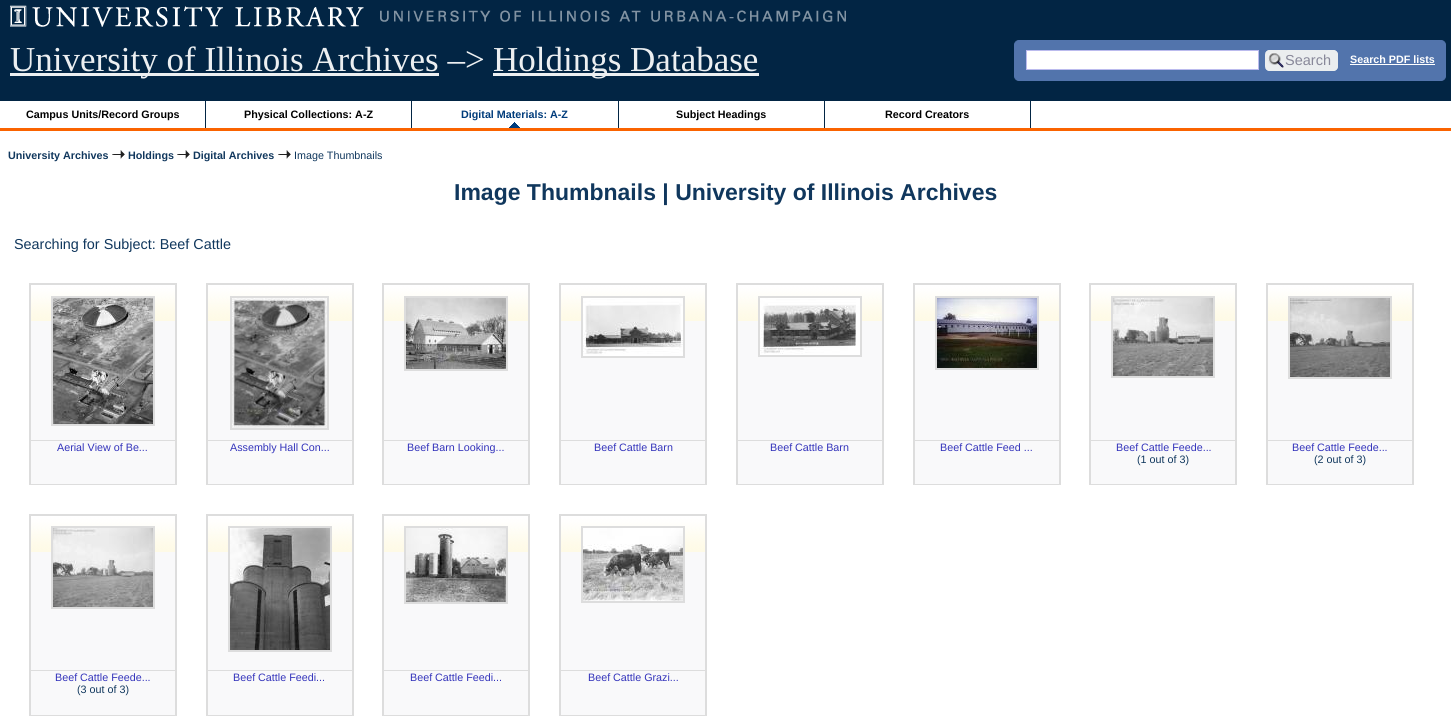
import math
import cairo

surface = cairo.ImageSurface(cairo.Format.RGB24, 1451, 726)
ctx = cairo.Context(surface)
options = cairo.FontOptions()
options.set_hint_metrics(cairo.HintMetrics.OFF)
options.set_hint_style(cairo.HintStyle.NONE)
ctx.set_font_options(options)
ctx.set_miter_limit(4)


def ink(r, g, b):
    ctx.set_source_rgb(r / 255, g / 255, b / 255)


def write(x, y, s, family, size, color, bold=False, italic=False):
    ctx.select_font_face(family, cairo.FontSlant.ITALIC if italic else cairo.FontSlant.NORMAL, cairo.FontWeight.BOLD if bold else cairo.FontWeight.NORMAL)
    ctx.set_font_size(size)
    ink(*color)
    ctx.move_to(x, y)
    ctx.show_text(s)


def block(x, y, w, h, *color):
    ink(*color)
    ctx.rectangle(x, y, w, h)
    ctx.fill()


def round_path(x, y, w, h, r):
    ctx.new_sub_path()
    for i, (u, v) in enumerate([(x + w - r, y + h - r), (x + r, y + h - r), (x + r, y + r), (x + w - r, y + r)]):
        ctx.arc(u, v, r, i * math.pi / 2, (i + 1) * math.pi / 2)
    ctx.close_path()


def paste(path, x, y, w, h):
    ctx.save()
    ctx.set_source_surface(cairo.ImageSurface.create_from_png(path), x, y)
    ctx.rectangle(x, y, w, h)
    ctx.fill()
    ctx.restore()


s1 = dict(family="Liberation Serif", size=35, color=(236, 239, 241))
s2 = dict(family="Liberation Sans", size=14.5, color=(136, 136, 153))
s3 = dict(family="Liberation Sans", size=10.75, color=(255, 255, 255), bold=True)
s4 = dict(family="Liberation Sans", size=10.75, color=(0, 0, 0), bold=True)
s5 = dict(family="Liberation Sans", size=10.75, color=(0, 60, 123), bold=True)
s6 = dict(family="Liberation Sans", size=10.75, color=(16, 55, 93), bold=True)
s7 = dict(family="Liberation Sans", size=10.75, color=(16, 55, 93))
s8 = dict(family="Liberation Sans", size=23, color=(16, 55, 93), bold=True)
s9 = dict(family="Liberation Sans", size=14.4, color=(16, 55, 93))
s10 = dict(family="Liberation Sans", size=10.75, color=(51, 51, 187))

ink(255, 255, 255)
ctx.paint()
block(0, 0, 1451, 101, 2, 37, 68)
paste("pic1.png", 10, 5, 836, 22)
block(0, 128, 1451, 3, 250, 99, 0)
block(10, 73, 429, 3, 236, 239, 241)
write(10, 71, "University of Illinois Archives –>", **s1)
block(493, 73, 266, 3, 236, 239, 241)
write(493, 71, "Holdings Database", **s1)
ink(82, 116, 172)
round_path(1014.5, 40.5, 431, 40, 4.5)
ctx.fill_preserve()
ctx.set_line_width(1)
ctx.stroke()
ink(255, 255, 255)
ctx.rectangle(1026.5, 50.5, 232, 19)
ctx.fill_preserve()
ink(187, 187, 238)
ctx.stroke()
ink(235, 238, 239)
round_path(1265, 50, 73, 21, 5)
ctx.fill()
paste("pic2.png", 1268, 52, 16, 16)
ctx.set_fill_rule(cairo.FillRule.EVEN_ODD)
ctx.new_path()
ctx.move_to(1270, 50)
ctx.line_to(1333, 50)
ctx.curve_to(1336, 50, 1338, 52, 1338, 55)
ctx.line_to(1338, 66)
ctx.curve_to(1338, 69, 1336, 71, 1333, 71)
ctx.line_to(1270, 71)
ctx.curve_to(1267, 71, 1265, 69, 1265, 66)
ctx.line_to(1265, 55)
ctx.curve_to(1265, 52, 1267, 50, 1270, 50)
ctx.close_path()
ctx.move_to(1270, 51)
ctx.line_to(1333, 51)
ctx.curve_to(1335, 51, 1337, 53, 1337, 55)
ctx.line_to(1337, 66)
ctx.curve_to(1337, 68, 1335, 70, 1333, 70)
ctx.line_to(1270, 70)
ctx.curve_to(1267, 70, 1265, 68, 1265, 66)
ctx.line_to(1265, 55)
ctx.curve_to(1265, 53, 1267, 51, 1270, 51)
ctx.close_path()
ctx.fill()
write(1285, 65, "Search", **s2)
write(1350, 63, "Search PDF lists", **s3)
block(1350, 64, 85, 1, 255, 255, 255)
block(205, 101, 1, 27, 2, 37, 68)
write(26, 118, "Campus Units/Record Groups", **s4)
block(411, 101, 1, 27, 2, 37, 68)
write(244, 118, "Physical Collections: A-Z", **s4)
paste("pic3.png", 509, 122, 11, 6)
block(618, 101, 1, 27, 2, 37, 68)
write(461, 118, "Digital Materials: A-Z", **s5)
block(824, 101, 1, 27, 2, 37, 68)
write(676, 118, "Subject Headings", **s4)
block(1030, 101, 1, 27, 2, 37, 68)
write(885, 118, "Record Creators", **s4)
write(8, 159, "University Archives", **s6)
paste("pic4.png", 112, 150, 13, 9)
write(128, 159, "Holdings", **s6)
paste("pic4.png", 177, 150, 13, 9)
write(193, 159, "Digital Archives", **s6)
paste("pic4.png", 278, 150, 13, 9)
write(294, 159, "Image Thumbnails", **s7)
write(454, 200, "Image Thumbnails | University of Illinois Archives", **s8)
write(14, 249, "Searching for Subject: Beef Cattle", **s9)
block(31, 321, 144, 119, 249, 249, 250)
paste("pic5.png", 31, 285, 144, 36)
ctx.rectangle(30, 284, 146, 200)
ink(221, 221, 221)
ctx.set_line_width(2)
ctx.stroke()
ctx.rectangle(52, 297, 102, 128)
ctx.stroke()
paste("pic6.png", 53, 298, 100, 126)
block(31, 441, 144, 43, 249, 249, 250)
block(31, 440, 144, 1, 221, 221, 221)
write(57, 451, "Aerial View of Be...", **s10)
block(208, 321, 144, 119, 249, 249, 250)
paste("pic5.png", 208, 285, 144, 36)
ctx.rectangle(207, 284, 146, 200)
ink(221, 221, 221)
ctx.stroke()
ctx.rectangle(231, 297, 97, 132)
ctx.stroke()
paste("pic7.png", 232, 298, 95, 130)
block(208, 441, 144, 43, 249, 249, 250)
block(208, 440, 144, 1, 221, 221, 221)
write(230, 451, "Assembly Hall Con...", **s10)
block(384, 321, 144, 119, 249, 249, 250)
paste("pic5.png", 384, 285, 144, 36)
ctx.rectangle(383, 284, 146, 200)
ink(221, 221, 221)
ctx.stroke()
ctx.rectangle(405, 297, 102, 73)
ctx.stroke()
paste("pic8.png", 406, 298, 100, 71)
block(384, 441, 144, 43, 249, 249, 250)
block(384, 440, 144, 1, 221, 221, 221)
write(407, 451, "Beef Barn Looking...", **s10)
block(561, 321, 144, 119, 249, 249, 250)
paste("pic5.png", 561, 285, 144, 36)
ctx.rectangle(560, 284, 146, 200)
ink(221, 221, 221)
ctx.stroke()
ctx.rectangle(582, 297, 102, 60)
ctx.stroke()
paste("pic9.png", 583, 298, 100, 58)
block(561, 441, 144, 43, 249, 249, 250)
block(561, 440, 144, 1, 221, 221, 221)
write(594, 451, "Beef Cattle Barn", **s10)
block(738, 321, 144, 119, 249, 249, 250)
paste("pic5.png", 738, 285, 144, 36)
ctx.rectangle(737, 284, 146, 200)
ink(221, 221, 221)
ctx.stroke()
ctx.rectangle(759, 297, 102, 59)
ctx.stroke()
paste("pic10.png", 760, 298, 100, 57)
block(738, 441, 144, 43, 249, 249, 250)
block(738, 440, 144, 1, 221, 221, 221)
write(770, 451, "Beef Cattle Barn", **s10)
block(915, 321, 144, 119, 249, 249, 250)
paste("pic5.png", 915, 285, 144, 36)
ctx.rectangle(914, 284, 146, 200)
ink(221, 221, 221)
ctx.stroke()
ctx.rectangle(936, 297, 102, 72)
ctx.stroke()
paste("pic11.png", 937, 298, 100, 70)
block(915, 441, 144, 43, 249, 249, 250)
block(915, 440, 144, 1, 221, 221, 221)
write(940, 451, "Beef Cattle Feed ...", **s10)
block(1091, 321, 144, 119, 249, 249, 250)
paste("pic5.png", 1091, 285, 144, 36)
ctx.rectangle(1090, 284, 146, 200)
ink(221, 221, 221)
ctx.stroke()
ctx.rectangle(1112, 297, 102, 80)
ctx.stroke()
paste("pic12.png", 1113, 298, 100, 78)
block(1091, 441, 144, 43, 249, 249, 250)
block(1091, 440, 144, 1, 221, 221, 221)
write(1116, 451, "Beef Cattle Feede...", **s10)
write(1137, 463, "(1 out of 3)", **s7)
block(1268, 321, 144, 119, 249, 249, 250)
paste("pic5.png", 1268, 285, 144, 36)
ctx.rectangle(1267, 284, 146, 200)
ink(221, 221, 221)
ctx.stroke()
ctx.rectangle(1289, 297, 102, 81)
ctx.stroke()
paste("pic13.png", 1290, 298, 100, 79)
block(1268, 441, 144, 43, 249, 249, 250)
block(1268, 440, 144, 1, 221, 221, 221)
write(1292, 451, "Beef Cattle Feede...", **s10)
write(1314, 463, "(2 out of 3)", **s7)
block(31, 552, 144, 118, 249, 249, 250)
paste("pic5.png", 31, 516, 144, 36)
ctx.rectangle(30, 515, 146, 200)
ink(221, 221, 221)
ctx.stroke()
ctx.rectangle(52, 527, 102, 81)
ctx.stroke()
paste("pic14.png", 53, 528, 100, 79)
block(31, 671, 144, 44, 249, 249, 250)
block(31, 670, 144, 1, 221, 221, 221)
write(55, 681, "Beef Cattle Feede...", **s10)
write(77, 693, "(3 out of 3)", **s7)
block(208, 552, 144, 118, 249, 249, 250)
paste("pic5.png", 208, 516, 144, 36)
ctx.rectangle(207, 515, 146, 200)
ink(221, 221, 221)
ctx.stroke()
ctx.rectangle(229, 527, 102, 124)
ctx.stroke()
paste("pic15.png", 230, 528, 100, 122)
block(208, 671, 144, 44, 249, 249, 250)
block(208, 670, 144, 1, 221, 221, 221)
write(233, 681, "Beef Cattle Feedi...", **s10)
block(384, 552, 144, 118, 249, 249, 250)
paste("pic5.png", 384, 516, 144, 36)
ctx.rectangle(383, 515, 146, 200)
ink(221, 221, 221)
ctx.stroke()
ctx.rectangle(405, 527, 102, 76)
ctx.stroke()
paste("pic16.png", 406, 528, 100, 74)
block(384, 671, 144, 44, 249, 249, 250)
block(384, 670, 144, 1, 221, 221, 221)
write(410, 681, "Beef Cattle Feedi...", **s10)
block(561, 552, 144, 118, 249, 249, 250)
paste("pic5.png", 561, 516, 144, 36)
ctx.rectangle(560, 515, 146, 200)
ink(221, 221, 221)
ctx.stroke()
ctx.rectangle(582, 527, 102, 75)
ctx.stroke()
paste("pic17.png", 583, 528, 100, 73)
block(561, 671, 144, 44, 249, 249, 250)
block(561, 670, 144, 1, 221, 221, 221)
write(588, 681, "Beef Cattle Grazi...", **s10)
surface.write_to_png("screenshot.png")
